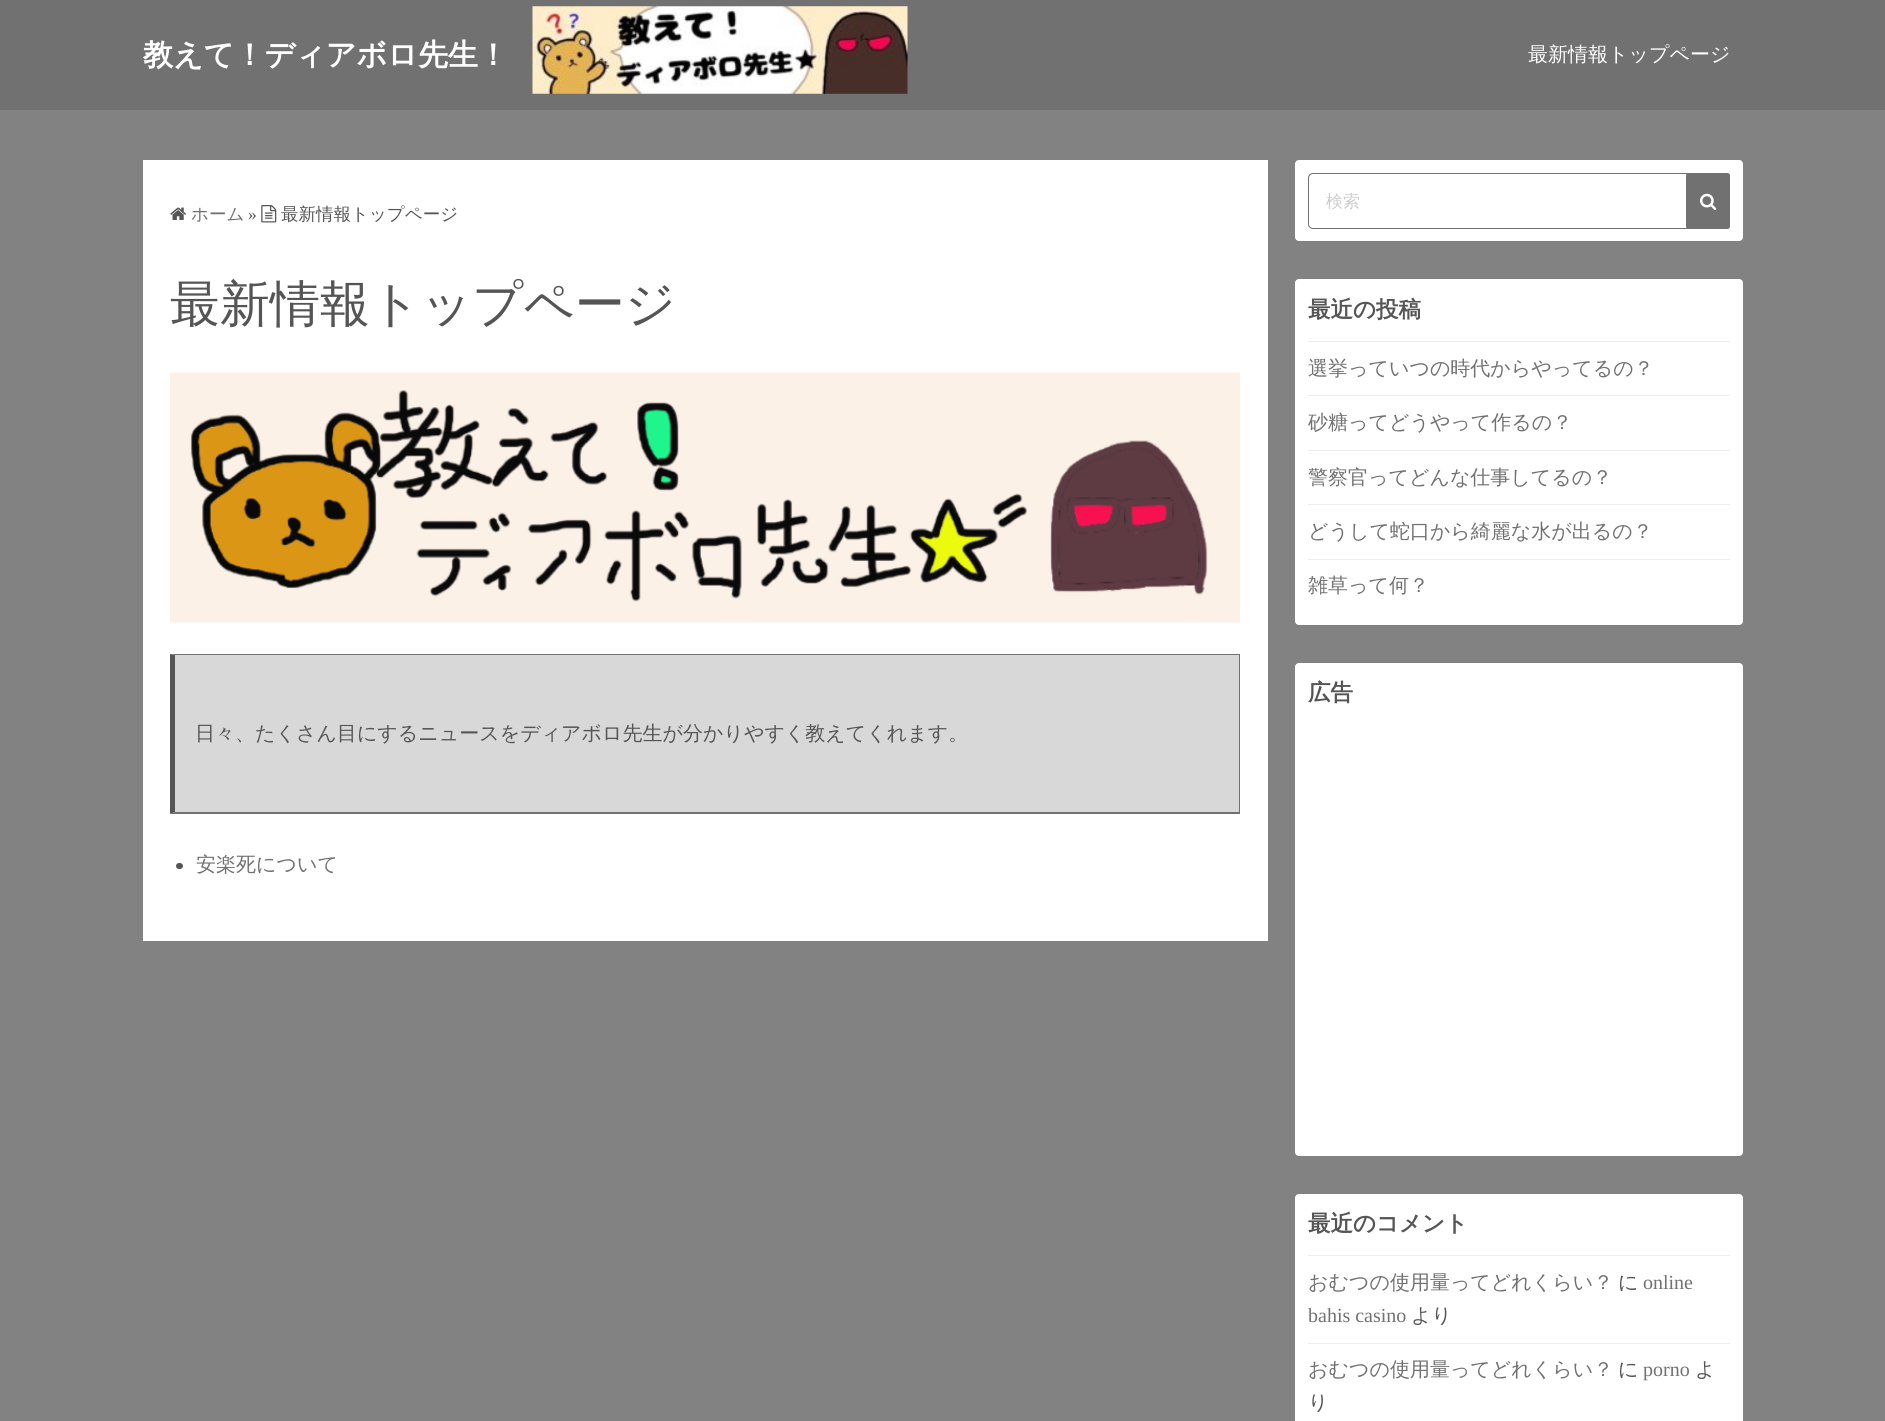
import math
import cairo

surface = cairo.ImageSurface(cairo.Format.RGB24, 1885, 1421)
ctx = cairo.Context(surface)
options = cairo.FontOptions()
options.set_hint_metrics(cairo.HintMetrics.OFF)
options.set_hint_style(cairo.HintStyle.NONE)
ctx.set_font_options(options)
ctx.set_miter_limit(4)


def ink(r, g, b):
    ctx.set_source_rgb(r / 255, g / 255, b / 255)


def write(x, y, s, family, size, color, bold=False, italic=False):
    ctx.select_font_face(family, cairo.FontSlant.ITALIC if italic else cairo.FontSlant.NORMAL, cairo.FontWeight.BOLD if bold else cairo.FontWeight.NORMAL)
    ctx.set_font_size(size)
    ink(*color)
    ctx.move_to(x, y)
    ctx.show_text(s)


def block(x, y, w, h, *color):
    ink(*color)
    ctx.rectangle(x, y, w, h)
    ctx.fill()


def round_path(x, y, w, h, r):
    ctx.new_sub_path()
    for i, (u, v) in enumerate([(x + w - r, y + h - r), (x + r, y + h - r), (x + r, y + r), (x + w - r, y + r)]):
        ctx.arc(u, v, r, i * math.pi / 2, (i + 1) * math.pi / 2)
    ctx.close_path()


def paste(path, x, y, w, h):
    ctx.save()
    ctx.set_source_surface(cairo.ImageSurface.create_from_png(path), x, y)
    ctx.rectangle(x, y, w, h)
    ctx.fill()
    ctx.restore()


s1 = dict(family="WenQuanYi Zen Hei", size=30, color=(255, 255, 255), bold=True)
s2 = dict(family="WenQuanYi Zen Hei Medium", size=20, color=(255, 255, 255))
s3 = dict(family="WenQuanYi Zen Hei Medium", size=17.5, color=(113, 113, 113))
s4 = dict(family="Liberation Serif", size=17.5, color=(85, 85, 85))
s5 = dict(family="WenQuanYi Zen Hei Medium", size=17.5, color=(85, 85, 85))
s6 = dict(family="WenQuanYi Zen Hei Medium", size=50, color=(85, 85, 85))
s7 = dict(family="WenQuanYi Zen Hei Medium", size=20, color=(85, 85, 85))
s8 = dict(family="WenQuanYi Zen Hei Medium", size=20, color=(113, 113, 113))
s9 = dict(family="WenQuanYi Zen Hei Medium", size=17, color=(204, 204, 204))
s10 = dict(family="WenQuanYi Zen Hei", size=22.5, color=(85, 85, 85), bold=True)
s11 = dict(family="Liberation Serif", size=20, color=(113, 113, 113))

ink(130, 130, 130)
ctx.paint()
block(0, 0, 1885, 110, 113, 113, 113)
write(143, 65, "教えて！ディアボロ先生！", **s1)
paste("pic1.png", 532, 6, 376, 88)
write(1528, 61, "最新情報トップページ", **s2)
block(143, 160, 1125, 781, 255, 255, 255)
paste("pic2.png", 170, 207, 16, 13)
write(191, 220, "ホーム", **s3)
write(248, 220, "»", **s4)
paste("pic3.png", 261, 205, 16, 18)
write(281, 220, "最新情報トップページ", **s5)
write(170, 321, "最新情報トップページ", **s6)
paste("pic4.png", 170, 372, 1070, 251)
block(175, 655, 1064, 157, 216, 216, 216)
ink(113, 113, 113)
ctx.new_path()
ctx.move_to(170, 654)
ctx.line_to(1240, 654)
ctx.line_to(1239, 655)
ctx.line_to(175, 655)
ctx.close_path()
ctx.fill()
block(1239, 654, 1, 160, 113, 113, 113)
ctx.new_path()
ctx.move_to(1240, 814)
ctx.line_to(170, 814)
ctx.line_to(175, 812)
ctx.line_to(1239, 812)
ctx.close_path()
ctx.fill()
ink(85, 85, 85)
ctx.new_path()
ctx.move_to(170, 814)
ctx.line_to(170, 654)
ctx.line_to(175, 655)
ctx.line_to(175, 812)
ctx.close_path()
ctx.fill()
write(195, 740, "日々、たくさん目にするニュースをディアボロ先生が分かりやすく教えてくれます。", **s7)
round_path(176, 863, 7, 6, 3)
ctx.fill()
write(196, 871, "安楽死について", **s8)
ink(255, 255, 255)
round_path(1295, 160, 448, 81, 4)
ctx.fill()
round_path(1308.5, 173.5, 421, 55, 4.5)
ink(113, 113, 113)
ctx.set_line_width(1)
ctx.stroke()
write(1326, 207, "検索", **s9)
ink(113, 113, 113)
round_path(1686, 173, 44, 56, 2.5)
ctx.fill()
paste("pic5.png", 1700, 193, 17, 17)
ink(255, 255, 255)
round_path(1295, 279, 448, 346, 4)
ctx.fill()
write(1308, 317, "最近の投稿", **s10)
block(1308, 341, 422, 1, 238, 238, 238)
write(1308, 375, "選挙っていつの時代からやってるの？", **s8)
block(1308, 395, 422, 1, 238, 238, 238)
write(1308, 429, "砂糖ってどうやって作るの？", **s8)
block(1308, 450, 422, 1, 238, 238, 238)
write(1308, 484, "警察官ってどんな仕事してるの？", **s8)
block(1308, 504, 422, 1, 238, 238, 238)
write(1308, 538, "どうして蛇口から綺麗な水が出るの？", **s8)
block(1308, 559, 422, 1, 238, 238, 238)
write(1308, 592, "雑草って何？", **s8)
ink(255, 255, 255)
round_path(1295, 663, 448, 493, 4)
ctx.fill()
write(1308, 700, "広告", **s10)
ink(255, 255, 255)
round_path(1295, 1194, 448, 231, 4)
ctx.fill()
write(1308, 1231, "最近のコメント", **s10)
block(1308, 1255, 422, 1, 238, 238, 238)
write(1308, 1289, "おむつの使用量ってどれくらい？", **s8)
write(1618, 1289, "に", **s7)
write(1643, 1289, "online", **s11)
write(1308, 1322, "bahis casino", **s11)
write(1411, 1322, "より", **s7)
block(1308, 1343, 422, 1, 238, 238, 238)
write(1308, 1376, "おむつの使用量ってどれくらい？", **s8)
write(1618, 1376, "に", **s7)
write(1643, 1376, "porno", **s11)
write(1695, 1376, "よ", **s7)
write(1308, 1409, "り", **s7)
surface.write_to_png("screenshot.png")
